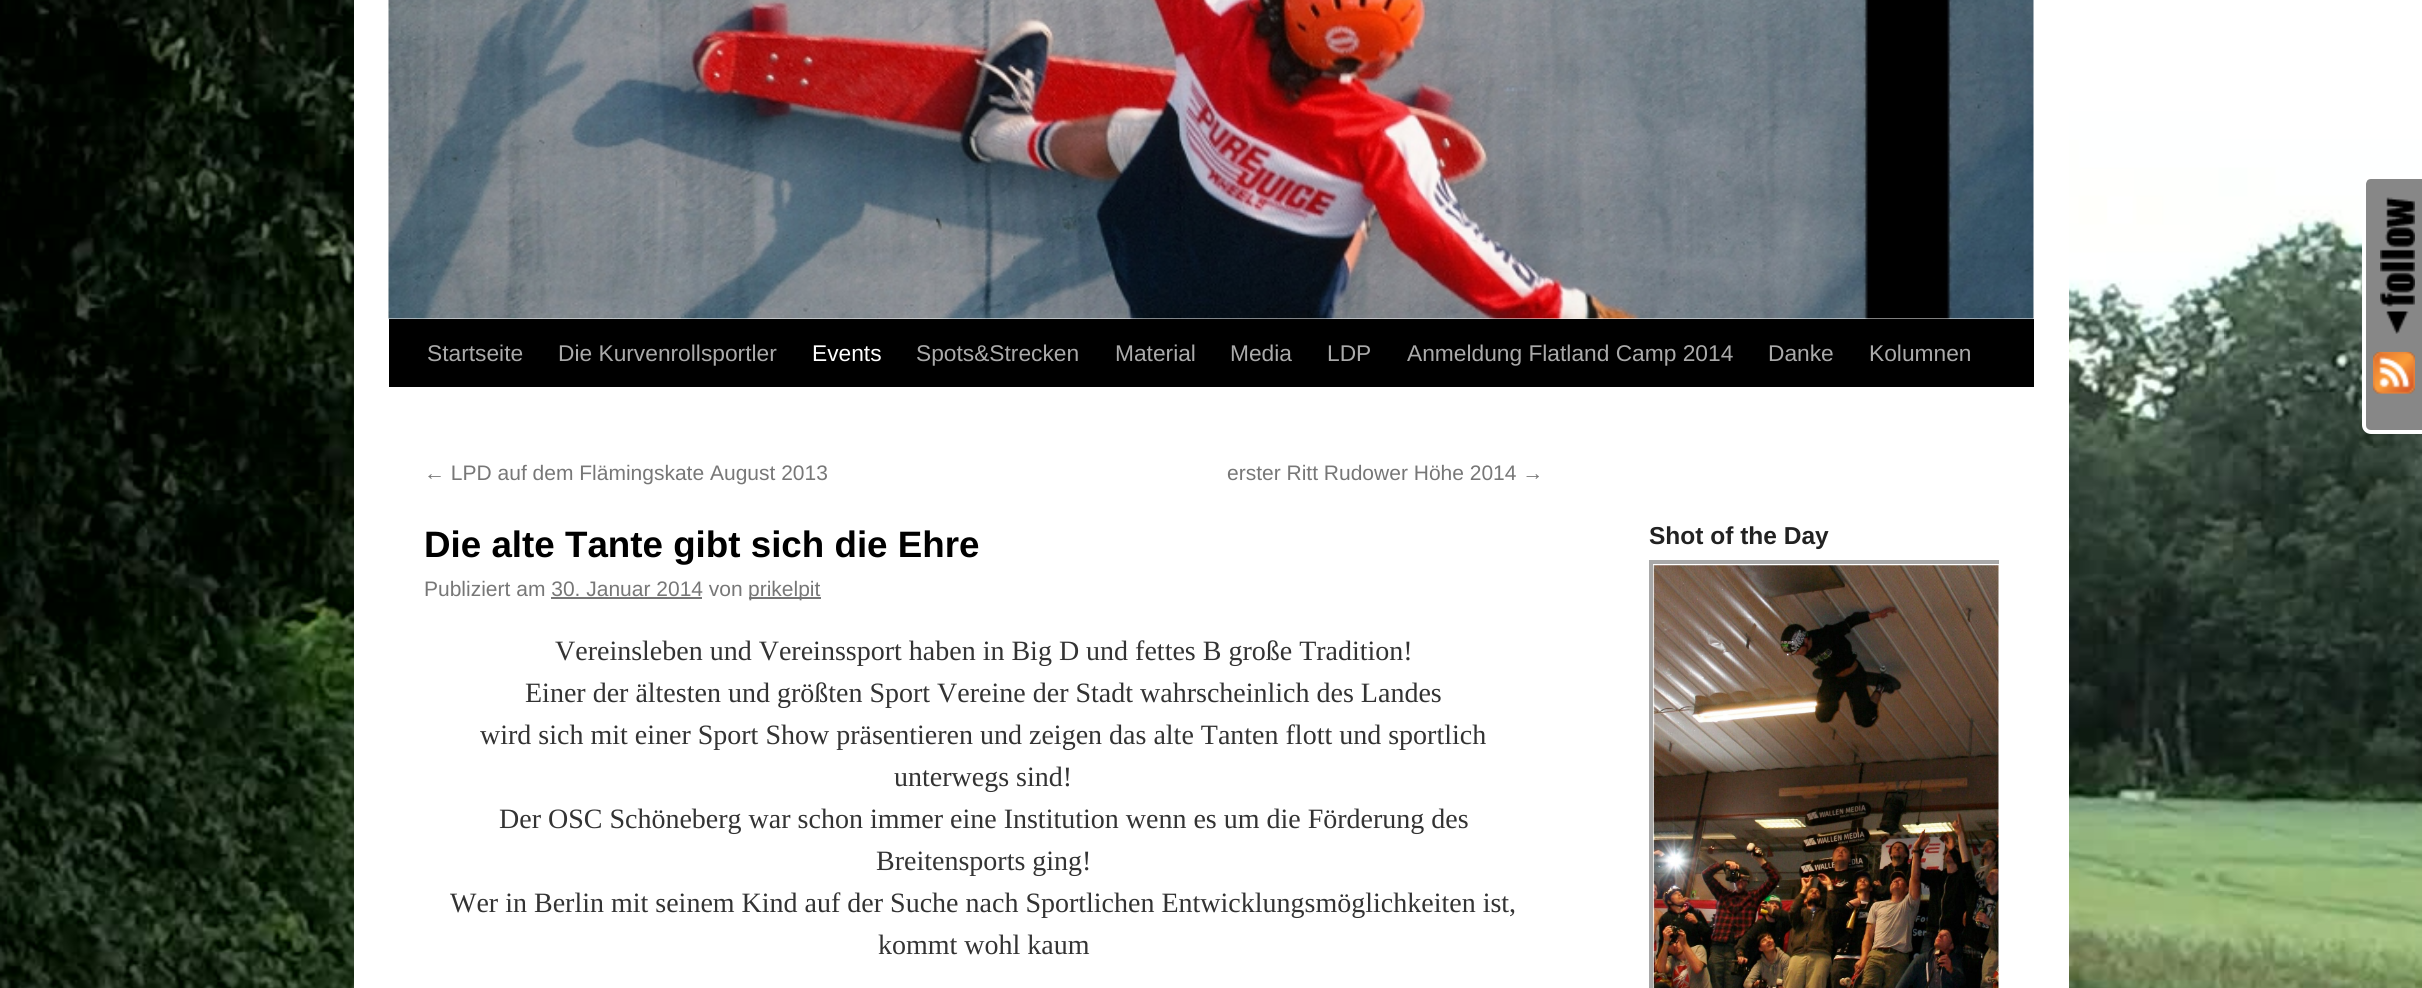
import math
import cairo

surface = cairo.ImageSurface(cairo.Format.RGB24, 2422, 988)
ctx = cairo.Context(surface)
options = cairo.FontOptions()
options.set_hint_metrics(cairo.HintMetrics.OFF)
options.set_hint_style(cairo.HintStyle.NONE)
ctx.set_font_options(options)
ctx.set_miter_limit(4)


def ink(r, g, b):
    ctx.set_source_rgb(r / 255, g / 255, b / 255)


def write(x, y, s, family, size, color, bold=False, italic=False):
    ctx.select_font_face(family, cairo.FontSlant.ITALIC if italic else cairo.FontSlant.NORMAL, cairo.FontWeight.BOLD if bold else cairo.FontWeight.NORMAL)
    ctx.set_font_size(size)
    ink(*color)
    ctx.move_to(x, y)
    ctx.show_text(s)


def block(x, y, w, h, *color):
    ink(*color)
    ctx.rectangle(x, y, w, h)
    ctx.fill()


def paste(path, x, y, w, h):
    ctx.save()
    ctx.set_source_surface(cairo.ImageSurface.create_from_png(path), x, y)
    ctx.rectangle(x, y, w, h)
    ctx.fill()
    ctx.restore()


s1 = dict(family="Liberation Sans", size=22.75, color=(170, 170, 170))
s2 = dict(family="Liberation Sans", size=22.75, color=(255, 255, 255))
s3 = dict(family="Liberation Sans", size=21, color=(119, 119, 119))
s4 = dict(family="Liberation Sans", size=36.75, color=(0, 0, 0), bold=True)
s5 = dict(family="Liberation Serif", size=28, color=(51, 51, 51))
s6 = dict(family="Liberation Sans", size=24.5, color=(34, 34, 34), bold=True)

ink(255, 255, 255)
ctx.paint()
paste("pic1.png", 0, 0, 2422, 988)
ink(135, 135, 135)
ctx.new_path()
ctx.move_to(2371, 179)
ctx.line_to(2422, 179)
ctx.line_to(2422, 431)
ctx.line_to(2371, 431)
ctx.curve_to(2368, 431, 2366, 429, 2366, 426)
ctx.line_to(2366, 184)
ctx.curve_to(2366, 181, 2368, 179, 2371, 179)
ctx.close_path()
ctx.fill()
ink(255, 255, 255)
ctx.set_fill_rule(cairo.FillRule.EVEN_ODD)
ctx.new_path()
ctx.move_to(2371, 175)
ctx.line_to(2422, 175)
ctx.line_to(2422, 434)
ctx.line_to(2371, 434)
ctx.curve_to(2366, 434, 2362, 430, 2362, 425)
ctx.line_to(2362, 184)
ctx.curve_to(2362, 179, 2366, 175, 2371, 175)
ctx.close_path()
ctx.move_to(2371, 178)
ctx.line_to(2422, 178)
ctx.line_to(2422, 430)
ctx.line_to(2371, 430)
ctx.curve_to(2368, 430, 2366, 428, 2366, 425)
ctx.line_to(2366, 184)
ctx.curve_to(2366, 181, 2368, 178, 2371, 178)
ctx.close_path()
ctx.fill()
paste("pic2.png", 2380, 197, 35, 137)
paste("pic3.png", 2373, 351, 42, 43)
block(354, 0, 1715, 988, 255, 255, 255)
block(389, 319, 1645, 68, 0, 0, 0)
paste("pic4.png", 388, 0, 1646, 319)
write(427, 361, "Startseite", **s1)
write(558, 361, "Die Kurvenrollsportler", **s1)
write(812, 361, "Events", **s2)
write(916, 361, "Spots&Strecken", **s1)
write(1115, 361, "Material", **s1)
write(1230, 361, "Media", **s1)
write(1327, 361, "LDP", **s1)
write(1407, 361, "Anmeldung Flatland Camp 2014", **s1)
write(1768, 361, "Danke", **s1)
write(1869, 361, "Kolumnen", **s1)
write(424, 480, "← LPD auf dem Flämingskate August 2013", **s3)
write(1227, 480, "erster Ritt Rudower Höhe 2014 →", **s3)
write(424, 557, "Die alte Tante gibt sich die Ehre", **s4)
write(424, 596, "Publiziert am 30. Januar 2014 von", **s3)
block(749, 597, 72, 2, 119, 119, 119)
write(748, 596, "prikelpit", **s3)
block(551, 597, 151, 2, 119, 119, 119)
write(555, 660, "Vereinsleben und Vereinssport haben in Big D und fettes B große Tradition!", **s5)
write(525, 702, "Einer der ältesten und größten Sport Vereine der Stadt wahrscheinlich des Landes", **s5)
write(480, 744, "wird sich mit einer Sport Show präsentieren und zeigen das alte Tanten flott und sportlich", **s5)
write(894, 786, "unterwegs sind!", **s5)
write(499, 828, "Der OSC Schöneberg war schon immer eine Institution wenn es um die Förderung des", **s5)
write(876, 870, "Breitensports ging!", **s5)
write(450, 912, "Wer in Berlin mit seinem Kind auf der Suche nach Sportlichen Entwicklungsmöglichkeiten ist,", **s5)
write(878, 954, "kommt wohl kaum", **s5)
write(1649, 544, "Shot of the Day", **s6)
ctx.save()
ctx.set_fill_rule(cairo.FillRule.WINDING)
ctx.rectangle(1649, 551, 350, 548)
ctx.clip()
ctx.rectangle(1651, 562, 356, 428)
ink(169, 169, 169)
ctx.set_line_width(4)
ctx.stroke()
ctx.restore()
paste("pic5.png", 1653, 565, 346, 423)
surface.write_to_png("screenshot.png")
